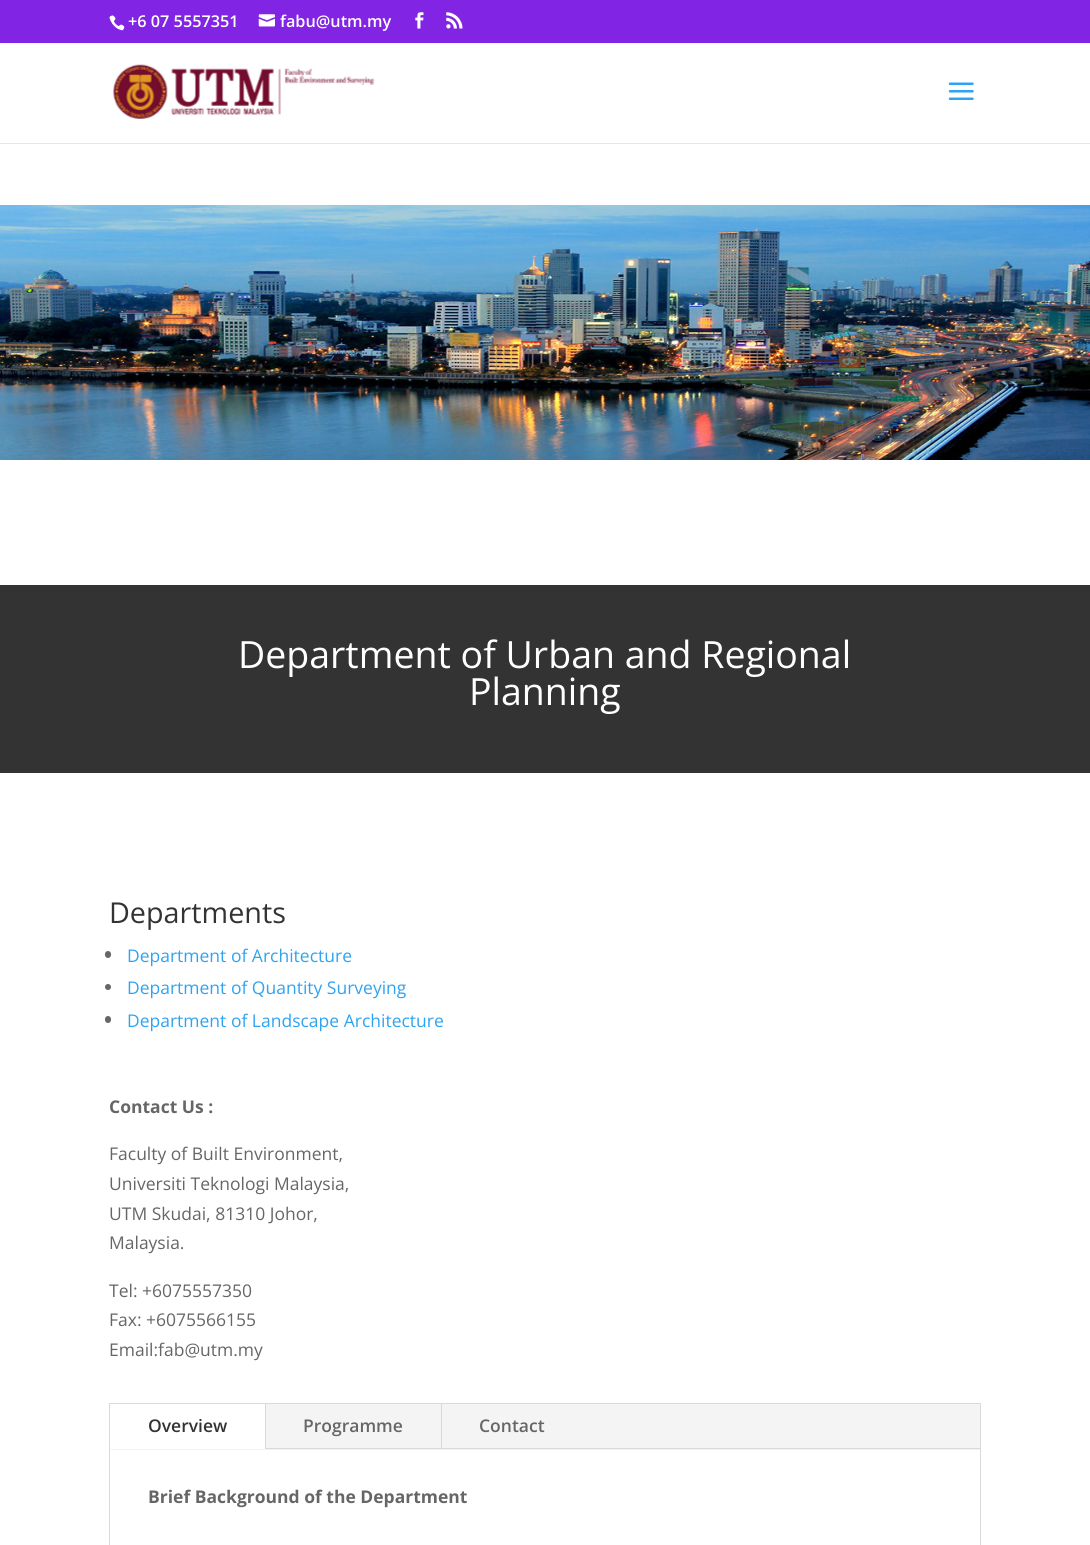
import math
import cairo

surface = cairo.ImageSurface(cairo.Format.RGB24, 1090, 1545)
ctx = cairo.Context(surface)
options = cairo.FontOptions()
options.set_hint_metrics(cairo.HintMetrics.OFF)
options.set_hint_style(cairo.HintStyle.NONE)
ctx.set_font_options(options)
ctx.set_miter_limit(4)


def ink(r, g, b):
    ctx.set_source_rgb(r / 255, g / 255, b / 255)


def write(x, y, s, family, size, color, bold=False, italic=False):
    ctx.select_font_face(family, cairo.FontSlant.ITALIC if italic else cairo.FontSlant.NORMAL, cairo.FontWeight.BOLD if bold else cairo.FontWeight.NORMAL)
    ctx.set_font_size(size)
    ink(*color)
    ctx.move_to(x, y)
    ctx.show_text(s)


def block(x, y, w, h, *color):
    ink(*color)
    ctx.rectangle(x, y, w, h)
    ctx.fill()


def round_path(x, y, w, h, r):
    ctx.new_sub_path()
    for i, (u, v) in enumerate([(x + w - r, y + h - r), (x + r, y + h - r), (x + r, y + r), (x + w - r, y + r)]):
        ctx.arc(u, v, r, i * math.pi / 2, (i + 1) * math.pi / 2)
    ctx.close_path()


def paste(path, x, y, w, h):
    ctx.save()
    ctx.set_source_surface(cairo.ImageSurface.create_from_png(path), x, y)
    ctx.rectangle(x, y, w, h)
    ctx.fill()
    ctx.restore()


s1 = dict(family="Open Sans SemiBold", size=16.25, color=(255, 255, 255))
s2 = dict(family="Open Sans", size=37.5, color=(255, 255, 255))
s3 = dict(family="Open Sans", size=28.75, color=(51, 51, 51))
s4 = dict(family="Open Sans", size=17.5, color=(46, 163, 242))
s5 = dict(family="Open Sans", size=17.5, color=(102, 102, 102), bold=True)
s6 = dict(family="Open Sans", size=17.5, color=(102, 102, 102))
s7 = dict(family="Open Sans SemiBold", size=17.5, color=(51, 51, 51))
s8 = dict(family="Open Sans SemiBold", size=17.5, color=(102, 102, 102))

ink(255, 255, 255)
ctx.paint()
block(0, 0, 1090, 43, 130, 36, 227)
paste("pic1.png", 109, 15, 16, 16)
write(128, 27, "+6 07 5557351", **s1)
paste("pic2.png", 258, 14, 17, 13)
write(280, 27, "fabu@utm.my", **s1)
paste("pic3.png", 415, 12, 9, 17)
paste("pic4.png", 446, 12, 17, 17)
block(0, 143, 1090, 1, 230, 230, 230)
paste("pic5.png", 113, 64, 262, 55)
paste("pic6.png", 948, 82, 26, 18)
paste("pic7.png", 0, 205, 1090, 255)
block(0, 585, 1090, 188, 51, 51, 51)
write(238, 668, "Department of Urban and Regional", **s2)
write(469, 705, "Planning", **s2)
write(109, 923, "Departments", **s3)
ink(102, 102, 102)
round_path(105, 951, 6, 7, 3)
ctx.fill()
write(127, 962, "Department of Architecture", **s4)
ink(102, 102, 102)
ctx.new_path()
ctx.arc(108, 987, 3, 0, 2 * math.pi)
ctx.fill()
write(127, 994, "Department of Quantity Surveying", **s4)
ink(102, 102, 102)
round_path(105, 1016, 6, 7, 3)
ctx.fill()
write(127, 1027, "Department of Landscape Architecture", **s4)
write(109, 1113, "Contact Us :", **s5)
write(109, 1160, "Faculty of Built Environment,", **s6)
write(109, 1190, "Universiti Teknologi Malaysia,", **s6)
write(109, 1220, "UTM Skudai, 81310 Johor,", **s6)
write(109, 1249, "Malaysia.", **s6)
write(109, 1297, "Tel: +6075557350", **s6)
write(109, 1326, "Fax: +6075566155", **s6)
write(109, 1356, "Email:fab@utm.my", **s6)
ctx.rectangle(109.5, 1403.5, 871, 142)
ink(217, 217, 217)
ctx.set_line_width(1)
ctx.stroke()
block(110, 1404, 870, 46, 244, 244, 244)
block(110, 1404, 155, 45, 255, 255, 255)
block(265, 1404, 1, 45, 217, 217, 217)
write(148, 1432, "Overview", **s7)
block(266, 1448, 714, 1, 217, 217, 217)
block(441, 1404, 1, 45, 217, 217, 217)
write(303, 1432, "Programme", **s8)
write(479, 1432, "Contact", **s8)
write(148, 1503, "Brief Background of the Department", **s5)
surface.write_to_png("screenshot.png")
